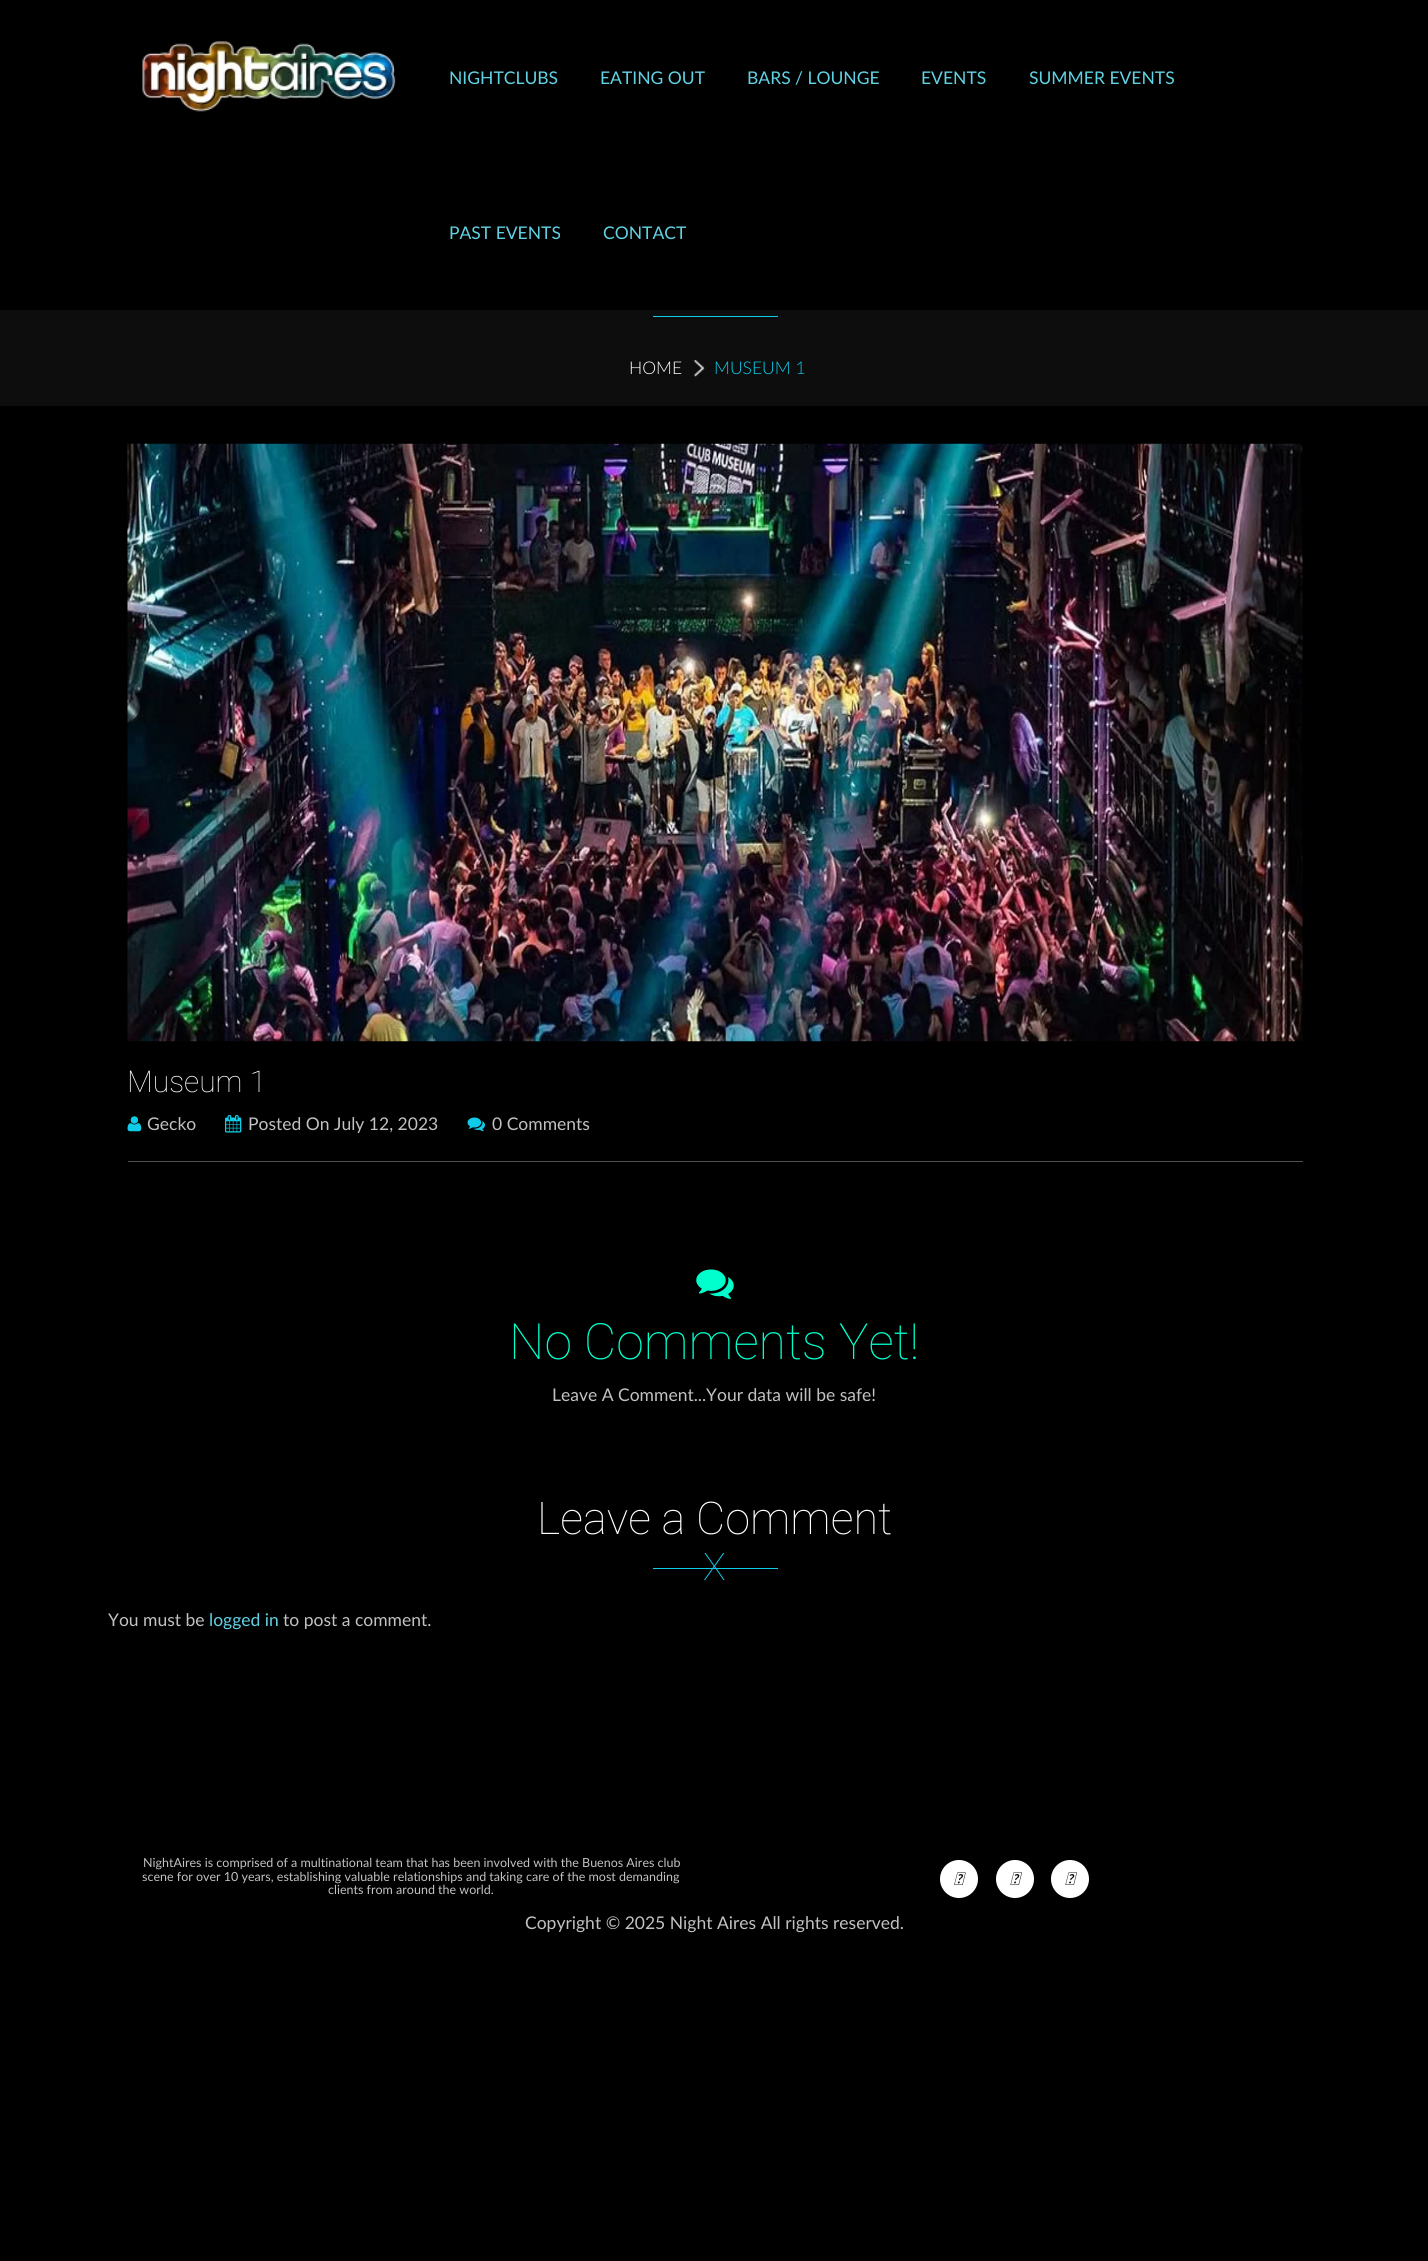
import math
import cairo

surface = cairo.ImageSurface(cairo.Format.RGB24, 1428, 2261)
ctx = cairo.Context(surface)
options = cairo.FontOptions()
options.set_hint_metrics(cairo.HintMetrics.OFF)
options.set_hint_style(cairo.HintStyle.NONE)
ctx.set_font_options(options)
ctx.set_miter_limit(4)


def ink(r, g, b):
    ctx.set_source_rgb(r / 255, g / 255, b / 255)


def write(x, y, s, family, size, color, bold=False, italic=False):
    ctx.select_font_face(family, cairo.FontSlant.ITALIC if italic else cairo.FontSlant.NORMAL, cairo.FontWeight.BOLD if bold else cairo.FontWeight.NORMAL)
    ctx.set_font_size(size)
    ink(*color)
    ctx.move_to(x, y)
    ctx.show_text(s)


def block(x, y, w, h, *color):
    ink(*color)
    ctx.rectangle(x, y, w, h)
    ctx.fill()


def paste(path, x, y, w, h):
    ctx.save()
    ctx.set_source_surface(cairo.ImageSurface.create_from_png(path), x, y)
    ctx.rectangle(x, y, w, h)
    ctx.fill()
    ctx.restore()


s1 = dict(family="Lato", size=17.5, color=(97, 210, 227))
s2 = dict(family="Lato Light", size=17.5, color=(255, 255, 255))
s3 = dict(family="Lato Light", size=17.5, color=(15, 204, 232))
s4 = dict(family="Roboto Thin", size=30, color=(255, 255, 255))
s5 = dict(family="Lato", size=17.5, color=(194, 194, 194))
s6 = dict(family="Roboto Thin", size=50, color=(0, 255, 204))
s7 = dict(family="Roboto Thin", size=45, color=(255, 255, 255))
s8 = dict(family="Roboto Thin", size=38, color=(15, 204, 232))
s9 = dict(family="Lato", size=12.5, color=(194, 194, 194))

ink(0, 0, 0)
ctx.paint()
paste("pic1.png", 142, 41, 254, 71)
write(449, 84, "NIGHTCLUBS", **s1)
write(600, 84, "EATING OUT", **s1)
write(747, 84, "BARS / LOUNGE", **s1)
write(921, 84, "EVENTS", **s1)
write(1029, 84, "SUMMER EVENTS", **s1)
write(449, 239, "PAST EVENTS", **s1)
write(603, 239, "CONTACT", **s1)
block(0, 310, 1428, 96, 13, 13, 13)
block(653, 316, 125, 1, 15, 204, 232)
write(629, 374, "HOME", **s2)
paste("pic2.png", 693, 360, 12, 17)
write(714, 374, "MUSEUM 1", **s3)
paste("pic3.png", 127, 443, 1176, 599)
write(127, 1092, "Museum 1", **s4)
paste("pic4.png", 127, 1116, 15, 16)
write(147, 1130, "Gecko", **s5)
paste("pic5.png", 225, 1115, 17, 18)
write(248, 1130, "Posted On July 12, 2023", **s5)
paste("pic6.png", 467, 1117, 18, 15)
write(492, 1130, "0 Comments", **s5)
block(128, 1161, 1175, 1, 81, 81, 81)
paste("pic7.png", 696, 1269, 38, 30)
write(509, 1359, "No Comments Yet!", **s6)
write(552, 1401, "Leave A Comment...Your data will be safe!", **s5)
write(537, 1534, "Leave a Comment", **s7)
write(703, 1580, "X", **s8)
block(653, 1568, 125, 1, 15, 204, 232)
write(108, 1626, "You must be", **s5)
write(209, 1626, "logged in", **s1)
write(283, 1626, "to post a comment.", **s5)
write(143, 1867, "NightAires is comprised of a multinational team that has been involved with the Buenos Aires club", **s9)
write(142, 1881, "scene for over 10 years, establishing valuable relationships and taking care of the most demanding", **s9)
write(328, 1894, "clients from around the world.", **s9)
ink(255, 255, 255)
ctx.new_path()
ctx.arc(959, 1879, 19, 0, 2 * math.pi)
ctx.fill()
paste("pic8.png", 954, 1872, 12, 13)
ctx.arc(1015, 1879, 19, 0, 2 * math.pi)
ctx.fill()
paste("pic9.png", 1010, 1872, 12, 13)
ctx.arc(1070, 1879, 19, 0, 2 * math.pi)
ctx.fill()
paste("pic9.png", 1065, 1872, 12, 13)
write(525, 1929, "Copyright © 2025 Night Aires All rights reserved.", **s5)
surface.write_to_png("screenshot.png")
